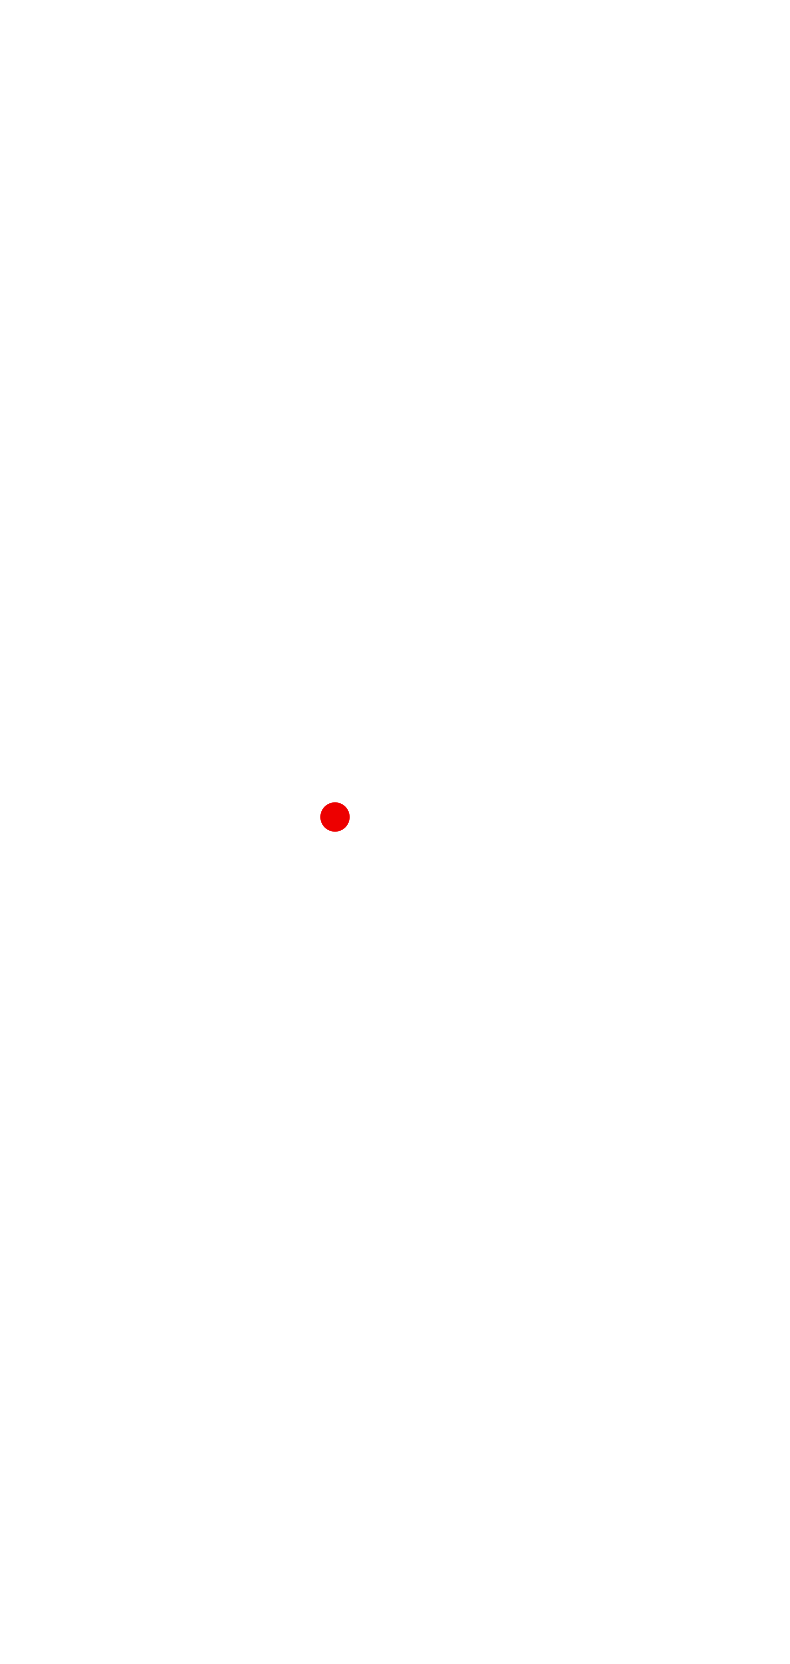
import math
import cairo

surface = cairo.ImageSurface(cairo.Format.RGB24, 790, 1664)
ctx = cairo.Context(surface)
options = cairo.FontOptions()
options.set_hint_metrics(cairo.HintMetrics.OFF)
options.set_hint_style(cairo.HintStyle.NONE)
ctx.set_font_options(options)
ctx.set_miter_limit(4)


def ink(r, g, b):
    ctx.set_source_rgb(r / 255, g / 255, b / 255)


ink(255, 255, 255)
ctx.paint()
gradient = cairo.RadialGradient(335, 817, 0, 335, 817, 15)
gradient.add_color_stop_rgba(0.9, 0.929, 0, 0, 1)
gradient.add_color_stop_rgba(1, 1, 1, 1, 1)
ctx.set_source(gradient)
ctx.rectangle(320, 802, 30, 30)
ctx.fill()
gradient = cairo.RadialGradient(335, 817, 0, 335, 817, 15)
gradient.add_color_stop_rgba(0.9, 0.929, 0, 0, 1)
gradient.add_color_stop_rgba(1, 0.929, 0, 0, 0)
ctx.set_source(gradient)
ctx.rectangle(320, 802, 30, 30)
ctx.fill()
ctx.rectangle(320, 802, 30, 30)
ctx.fill()
ctx.rectangle(320, 802, 30, 30)
ctx.fill()
surface.write_to_png("screenshot.png")
